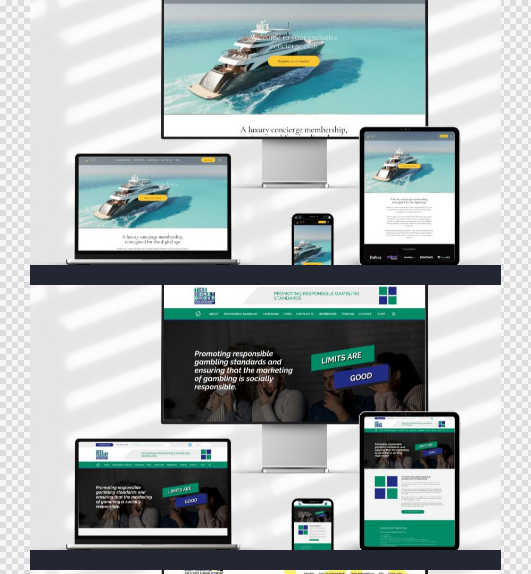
import math
import cairo

surface = cairo.ImageSurface(cairo.Format.RGB24, 531, 574)
ctx = cairo.Context(surface)
options = cairo.FontOptions()
options.set_hint_metrics(cairo.HintMetrics.OFF)
options.set_hint_style(cairo.HintStyle.NONE)
ctx.set_font_options(options)
ctx.set_miter_limit(4)


def ink(r, g, b):
    ctx.set_source_rgb(r / 255, g / 255, b / 255)


def block(x, y, w, h, *color):
    ink(*color)
    ctx.rectangle(x, y, w, h)
    ctx.fill()


def paste(path, x, y, w, h):
    ctx.save()
    ctx.set_source_surface(cairo.ImageSurface.create_from_png(path), x, y)
    ctx.rectangle(x, y, w, h)
    ctx.fill()
    ctx.restore()


ink(255, 255, 255)
ctx.paint()
paste("pic1.png", 0, 0, 531, 574)
block(30, 265, 471, 305, 34, 39, 51)
paste("pic2.png", 30, 0, 471, 265)
paste("pic3.png", 30, 285, 471, 265)
paste("pic4.png", 30, 570, 471, 4)
surface.write_to_png("screenshot.png")
